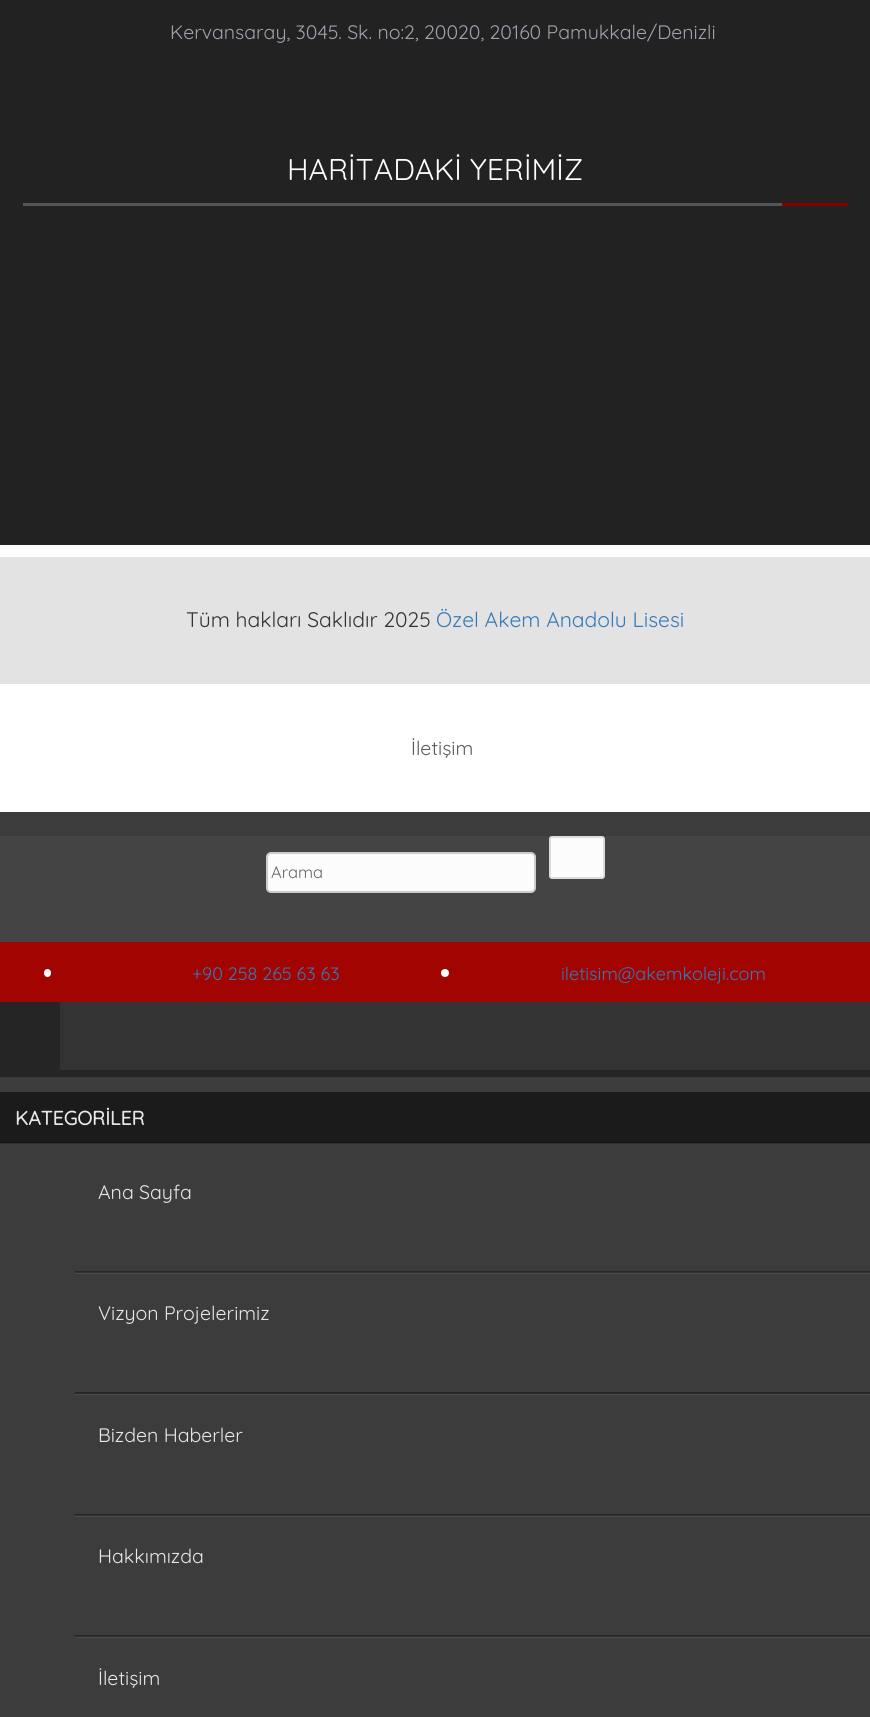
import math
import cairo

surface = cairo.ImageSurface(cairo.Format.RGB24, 870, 1717)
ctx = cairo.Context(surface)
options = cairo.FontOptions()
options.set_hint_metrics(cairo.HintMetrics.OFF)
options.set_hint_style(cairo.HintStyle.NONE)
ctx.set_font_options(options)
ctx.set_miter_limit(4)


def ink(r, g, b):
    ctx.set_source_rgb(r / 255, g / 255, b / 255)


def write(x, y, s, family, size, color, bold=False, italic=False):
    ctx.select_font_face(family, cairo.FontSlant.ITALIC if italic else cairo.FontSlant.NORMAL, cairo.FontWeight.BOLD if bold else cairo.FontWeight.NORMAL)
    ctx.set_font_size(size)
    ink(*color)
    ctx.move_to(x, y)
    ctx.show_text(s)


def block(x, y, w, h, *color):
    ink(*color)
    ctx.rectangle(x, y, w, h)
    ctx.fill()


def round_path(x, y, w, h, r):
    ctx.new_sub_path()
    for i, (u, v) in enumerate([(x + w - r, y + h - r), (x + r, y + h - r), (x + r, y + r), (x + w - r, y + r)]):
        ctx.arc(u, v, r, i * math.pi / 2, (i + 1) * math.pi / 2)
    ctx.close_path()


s1 = dict(family="Quicksand Light", size=19.5, color=(159, 161, 172))
s2 = dict(family="Quicksand Light", size=30, color=(255, 255, 255))
s3 = dict(family="Quicksand Light", size=21, color=(51, 51, 51))
s4 = dict(family="Quicksand Light", size=21, color=(51, 122, 183))
s5 = dict(family="Quicksand Light", size=19.5, color=(91, 91, 91))
s6 = dict(family="Quicksand Light", size=16.5, color=(102, 102, 102))
s7 = dict(family="Quicksand Light", size=18, color=(51, 122, 183))
s8 = dict(family="Quicksand", size=19.5, color=(232, 232, 232), bold=True)
s9 = dict(family="Quicksand Light", size=19.5, color=(232, 232, 232))

ink(255, 255, 255)
ctx.paint()
block(0, 0, 870, 545, 34, 34, 34)
write(170, 39, "Kervansaray, 3045. Sk. no:2, 20020, 20160 Pamukkale/Denizli", **s1)
block(23, 203, 759, 3, 85, 85, 85)
write(287, 180, "HARİTADAKİ YERİMİZ", **s2)
block(782, 203, 66, 3, 130, 0, 0)
block(0, 557, 870, 127, 227, 227, 227)
write(186, 627, "Tüm hakları Saklıdır 2025", **s3)
write(436, 627, "Özel Akem Anadolu Lisesi", **s4)
write(411, 755, "İletişim", **s5)
block(0, 812, 870, 905, 60, 60, 60)
block(75, 1514, 795, 1, 39, 39, 39)
block(75, 1635, 795, 1, 39, 39, 39)
block(75, 1271, 795, 1, 39, 39, 39)
block(0, 1143, 870, 1, 47, 47, 47)
block(0, 836, 870, 106, 68, 68, 68)
ink(252, 252, 252)
round_path(267, 853, 268, 39, 4)
ctx.fill_preserve()
ink(204, 204, 204)
ctx.stroke()
write(271, 878, "Arama", **s6)
ink(252, 252, 252)
round_path(550, 837, 54, 41, 2)
ctx.fill_preserve()
ink(220, 220, 220)
ctx.stroke()
block(0, 1002, 870, 75, 37, 37, 37)
block(0, 942, 870, 60, 162, 5, 1)
ink(255, 255, 255)
round_path(44, 969, 7, 8, 3.5)
ctx.fill()
write(192, 980, "+90 258 265 63 63", **s7)
ink(255, 255, 255)
ctx.new_path()
ctx.arc(445, 973, 4, 0, 2 * math.pi)
ctx.fill()
write(561, 980, "iletisim@akemkoleji.com", **s7)
block(60, 1002, 810, 68, 51, 51, 51)
block(0, 1092, 870, 50, 27, 27, 27)
block(0, 1142, 870, 1, 21, 21, 21)
write(15, 1125, "KATEGORİLER", **s8)
block(75, 1273, 795, 1, 76, 76, 76)
block(75, 1272, 795, 1, 49, 49, 49)
write(98, 1199, "Ana Sayfa", **s9)
block(75, 1394, 795, 1, 76, 76, 76)
block(75, 1392, 795, 2, 39, 39, 39)
write(98, 1320, "Vizyon Projelerimiz", **s9)
block(75, 1516, 795, 1, 76, 76, 76)
block(75, 1515, 795, 1, 49, 49, 49)
write(98, 1442, "Bizden Haberler", **s9)
block(75, 1637, 795, 1, 76, 76, 76)
block(75, 1636, 795, 1, 49, 49, 49)
write(98, 1563, "Hakkımızda", **s9)
write(98, 1685, "İletişim", **s9)
surface.write_to_png("screenshot.png")
